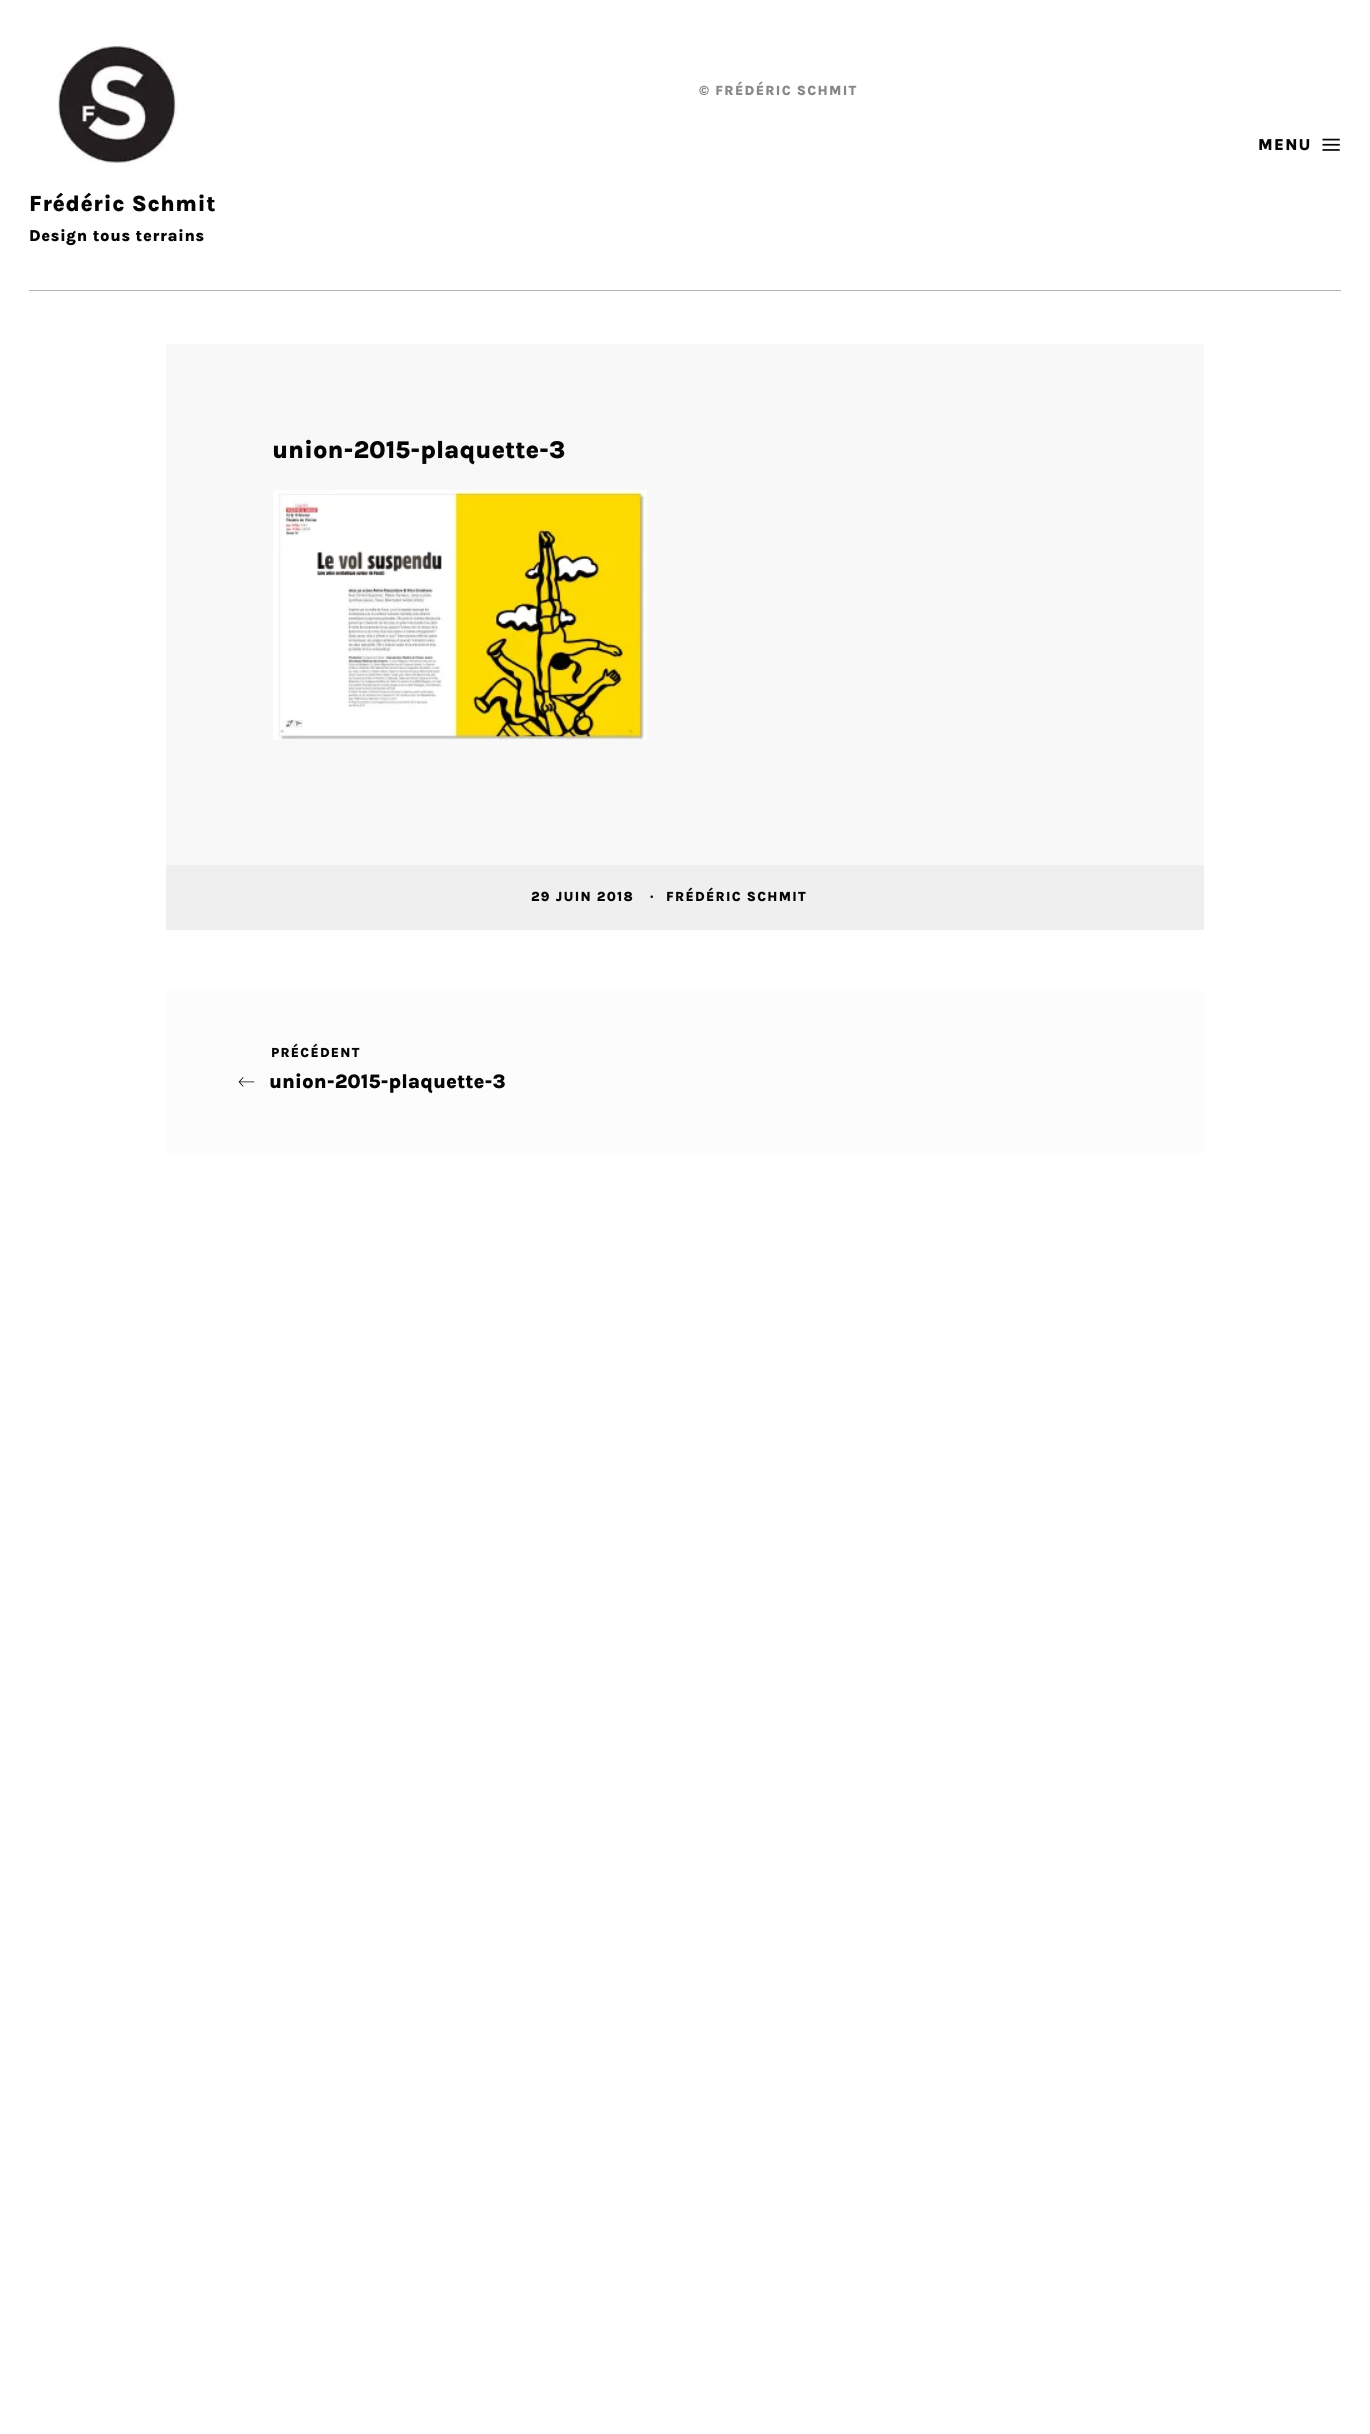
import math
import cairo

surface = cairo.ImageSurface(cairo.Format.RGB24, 1370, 2434)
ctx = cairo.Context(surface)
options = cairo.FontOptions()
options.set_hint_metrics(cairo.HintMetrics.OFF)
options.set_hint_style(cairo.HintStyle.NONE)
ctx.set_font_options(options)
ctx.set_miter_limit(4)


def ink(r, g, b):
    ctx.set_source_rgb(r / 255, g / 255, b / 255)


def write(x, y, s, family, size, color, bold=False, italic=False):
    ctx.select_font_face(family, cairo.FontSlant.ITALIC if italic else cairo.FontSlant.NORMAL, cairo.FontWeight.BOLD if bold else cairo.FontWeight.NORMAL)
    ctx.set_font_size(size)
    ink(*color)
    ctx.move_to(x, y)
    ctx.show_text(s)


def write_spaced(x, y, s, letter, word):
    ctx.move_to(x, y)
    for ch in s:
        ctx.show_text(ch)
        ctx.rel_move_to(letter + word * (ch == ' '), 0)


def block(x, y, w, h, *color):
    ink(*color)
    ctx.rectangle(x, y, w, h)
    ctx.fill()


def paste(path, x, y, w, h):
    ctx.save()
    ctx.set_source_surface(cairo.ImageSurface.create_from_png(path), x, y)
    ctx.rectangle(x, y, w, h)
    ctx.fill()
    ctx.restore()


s1 = dict(family="Karla ExtraBold", size=24.8, color=(5, 5, 5))
s2 = dict(family="Karla ExtraBold", size=20, color=(5, 5, 5))

ink(255, 255, 255)
ctx.paint()
block(29, 290, 1312, 1, 181, 181, 181)
ctx.select_font_face("Karla ExtraBold")
ctx.set_font_size(13.75)
ink(136, 136, 136)
write_spaced(699, 95, "© FRÉDÉRIC SCHMIT", 1.25, 0)
ctx.set_font_size(16.25)
ink(5, 5, 5)
write_spaced(1258, 150, "MENU", 1.25, 0)
paste("pic1.png", 1322, 138, 18, 13)
paste("pic2.png", 58, 46, 121, 120)
ctx.set_font_size(22.5)
write_spaced(29, 211, "Frédéric Schmit", 0.6, 0)
ctx.set_font_size(16.25)
write_spaced(29, 241, "Design tous terrains", 0.6, 0)
block(166, 344, 1038, 521, 248, 248, 248)
write(272, 458, "union-2015-plaquette-3", **s1)
paste("pic3.png", 273, 490, 374, 250)
block(166, 865, 1038, 65, 239, 239, 239)
ctx.set_font_size(13.6)
ink(5, 5, 5)
write_spaced(531, 901, "29 JUIN 2018", 1.25, 0)
ctx.select_font_face("Liberation Serif")
ctx.set_font_size(22)
write_spaced(649, 904, "∙", 1.25, 0)
ctx.select_font_face("Karla ExtraBold")
ctx.set_font_size(13.6)
write_spaced(666, 901, "FRÉDÉRIC SCHMIT", 1.25, 0)
block(166, 991, 1038, 162, 252, 252, 252)
ctx.set_font_size(13.5)
ink(5, 5, 5)
write_spaced(271, 1057, "PRÉCÉDENT", 1.25, 0)
paste("pic4.png", 238, 1077, 17, 10)
write(269, 1088, "union-2015-plaquette-3", **s2)
surface.write_to_png("screenshot.png")
